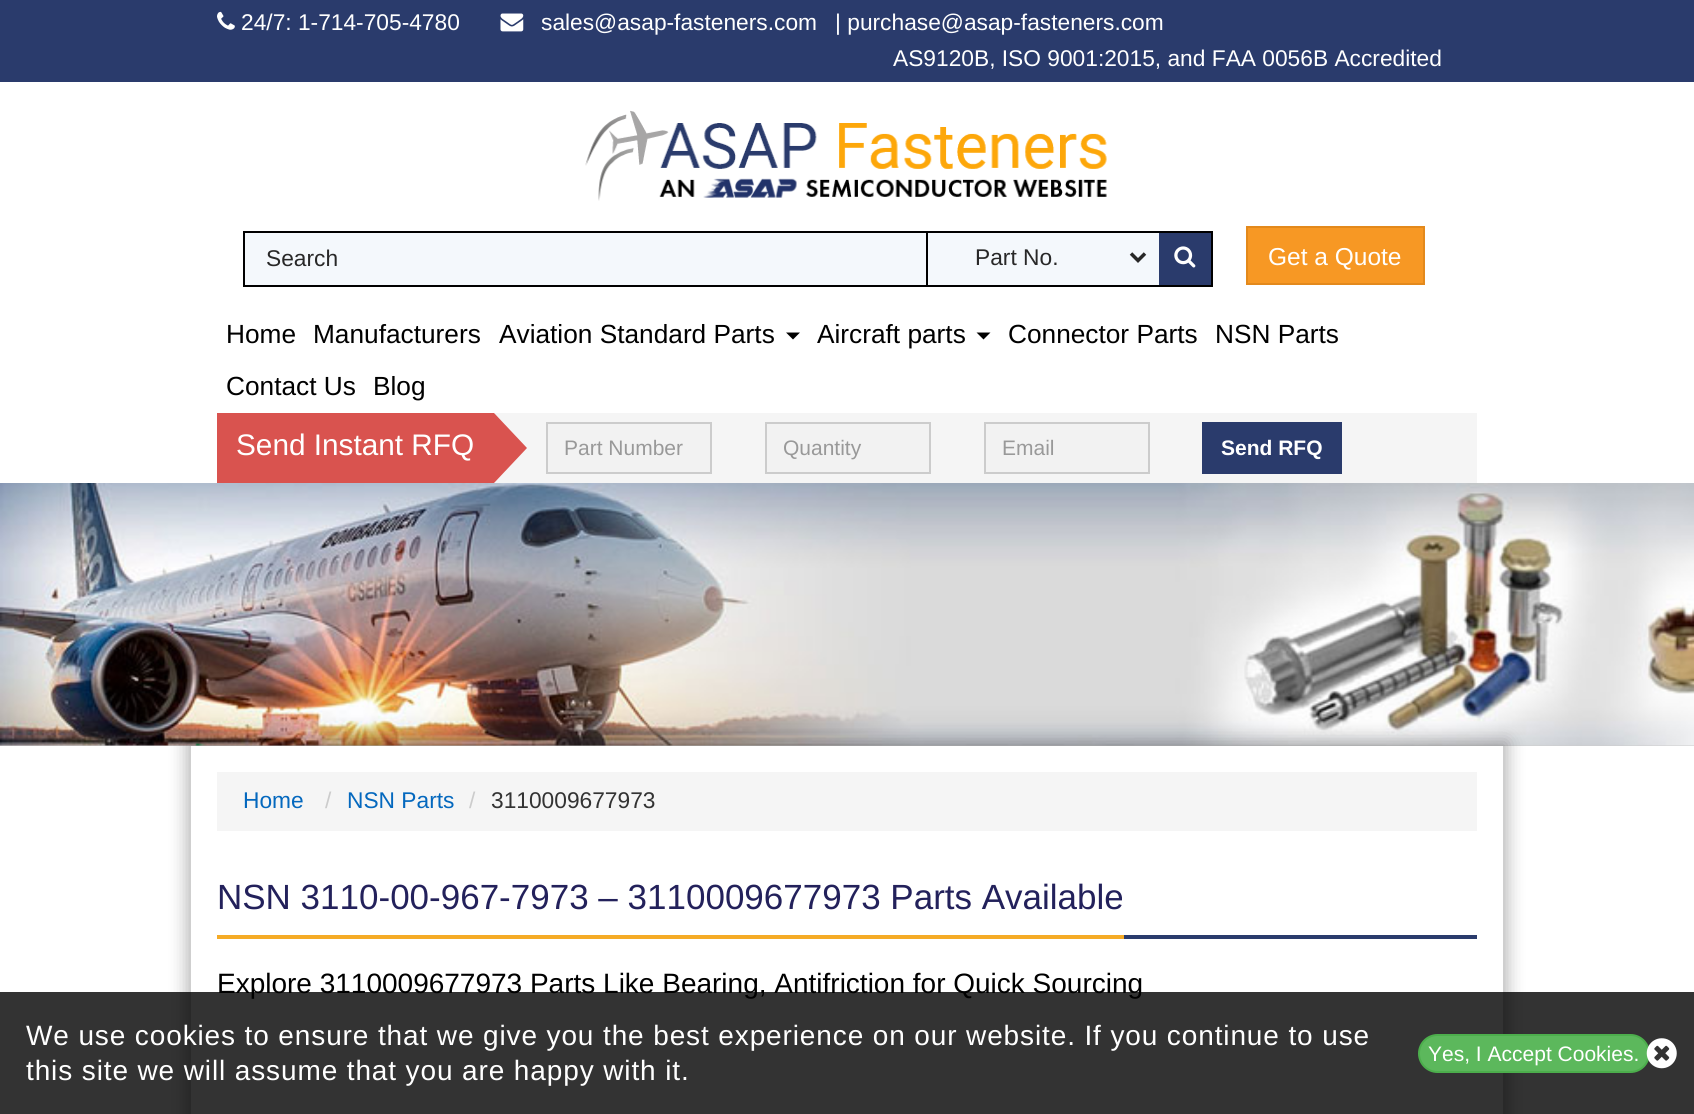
import math
import cairo

surface = cairo.ImageSurface(cairo.Format.RGB24, 1694, 1114)
ctx = cairo.Context(surface)
options = cairo.FontOptions()
options.set_hint_metrics(cairo.HintMetrics.OFF)
options.set_hint_style(cairo.HintStyle.NONE)
ctx.set_font_options(options)
ctx.set_miter_limit(4)


def ink(r, g, b):
    ctx.set_source_rgb(r / 255, g / 255, b / 255)


def write(x, y, s, family, size, color, bold=False, italic=False):
    ctx.select_font_face(family, cairo.FontSlant.ITALIC if italic else cairo.FontSlant.NORMAL, cairo.FontWeight.BOLD if bold else cairo.FontWeight.NORMAL)
    ctx.set_font_size(size)
    ink(*color)
    ctx.move_to(x, y)
    ctx.show_text(s)


def write_spaced(x, y, s, letter, word):
    ctx.move_to(x, y)
    for ch in s:
        ctx.show_text(ch)
        ctx.rel_move_to(letter + word * (ch == ' '), 0)


def block(x, y, w, h, *color):
    ink(*color)
    ctx.rectangle(x, y, w, h)
    ctx.fill()


def round_path(x, y, w, h, r):
    ctx.new_sub_path()
    for i, (u, v) in enumerate([(x + w - r, y + h - r), (x + r, y + h - r), (x + r, y + r), (x + w - r, y + r)]):
        ctx.arc(u, v, r, i * math.pi / 2, (i + 1) * math.pi / 2)
    ctx.close_path()


def blur_box(x, y, w, h, r, blur, alpha):
    ctx.push_group_with_content(cairo.Content.ALPHA)
    ctx.set_operator(cairo.Operator.SOURCE)
    for i in range(15, -16, -2):
        e = blur * i / 6
        if min(w, h) + 2 * e > 0:
            ctx.set_source_rgba(0, 0, 0, alpha * math.erfc((i - 1) / 8.5) / 2)
            round_path(x - e, y - e, w + 2 * e, h + 2 * e, max(0, min(r + e + blur * .6, min(w, h) / 2 + e)))
            ctx.fill()
    ctx.mask(ctx.pop_group())


def paste(path, x, y, w, h):
    ctx.save()
    ctx.set_source_surface(cairo.ImageSurface.create_from_png(path), x, y)
    ctx.rectangle(x, y, w, h)
    ctx.fill()
    ctx.restore()


s1 = dict(family="Liberation Sans", size=22.75, color=(255, 255, 255))
s2 = dict(family="Liberation Sans", size=22.75, color=(40, 40, 40))
s3 = dict(family="Liberation Sans", size=24.5, color=(255, 255, 255))
s4 = dict(family="Liberation Sans", size=26.25, color=(0, 0, 0))
s5 = dict(family="Liberation Sans", size=29.75, color=(255, 255, 255))
s6 = dict(family="Liberation Sans", size=21, color=(153, 153, 153))
s7 = dict(family="Liberation Sans", size=21, color=(255, 255, 255), bold=True)
s8 = dict(family="Liberation Sans", size=22.75, color=(4, 104, 190))
s9 = dict(family="Liberation Sans", size=22.75, color=(204, 204, 204))
s10 = dict(family="Liberation Sans", size=22.75, color=(51, 51, 51))
s11 = dict(family="Liberation Sans", size=35, color=(35, 33, 91))
s12 = dict(family="Liberation Sans", size=28, color=(0, 0, 0))
s13 = dict(family="Liberation Sans", size=21, color=(255, 255, 255))

ink(255, 255, 255)
ctx.paint()
block(0, 0, 1694, 82, 42, 59, 108)
paste("pic1.png", 217, 11, 18, 19)
write(241, 30, "24/7: 1-714-705-4780", **s1)
paste("pic2.png", 500, 13, 24, 19)
write(541, 30, "sales@asap-fasteners.com", **s1)
write(835, 30, "| purchase@asap-fasteners.com", **s1)
write(893, 66, "AS9120B, ISO 9001:2015, and FAA 0056B Accredited", **s1)
paste("pic3.png", 585, 110, 522, 91)
block(245, 233, 914, 52, 244, 248, 252)
ctx.rectangle(244, 232, 968, 54)
ink(0, 0, 0)
ctx.stroke()
block(926, 233, 2, 52, 0, 0, 0)
write(266, 266, "Search", **s2)
ctx.new_path()
ctx.move_to(1131, 253.5)
ctx.line_to(1138, 260.5)
ctx.line_to(1145, 253.5)
ctx.set_line_width(3.5)
ctx.stroke()
write(975, 265, "Part No.", **s2)
block(1159, 233, 52, 52, 42, 59, 108)
paste("pic4.png", 1174, 246, 22, 22)
ink(247, 152, 36)
ctx.rectangle(1247, 227, 177, 57)
ctx.fill_preserve()
ink(227, 137, 28)
ctx.set_line_width(2)
ctx.stroke()
write(1268, 265, "Get a Quote", **s3)
write(226, 343, "Home", **s4)
write(313, 343, "Manufacturers", **s4)
write(499, 343, "Aviation Standard Parts", **s4)
ctx.new_path()
ctx.move_to(786, 332.5)
ctx.line_to(800, 332.5)
ctx.line_to(793, 339.5)
ctx.close_path()
ctx.fill()
write(817, 343, "Aircraft parts", **s4)
ctx.new_path()
ctx.move_to(976.5, 332.5)
ctx.line_to(990.5, 332.5)
ctx.line_to(983.5, 339.5)
ctx.close_path()
ctx.fill()
write(1008, 343, "Connector Parts", **s4)
write(1215, 343, "NSN Parts", **s4)
write(226, 395, "Contact Us", **s4)
write(373, 395, "Blog", **s4)
block(494, 413, 983, 70, 245, 245, 245)
block(217, 413, 277, 70, 217, 83, 79)
write(236, 455, "Send Instant RFQ", **s5)
ink(217, 83, 79)
ctx.new_path()
ctx.move_to(494, 483)
ctx.line_to(494, 413)
ctx.line_to(527, 448)
ctx.close_path()
ctx.fill()
ink(242, 242, 242)
ctx.rectangle(547, 423, 164, 50)
ctx.fill_preserve()
ink(204, 204, 204)
ctx.stroke()
write(564, 455, "Part Number", **s6)
ink(242, 242, 242)
ctx.rectangle(766, 423, 164, 50)
ctx.fill_preserve()
ink(204, 204, 204)
ctx.stroke()
write(783, 455, "Quantity", **s6)
ink(242, 242, 242)
ctx.rectangle(985, 423, 164, 50)
ctx.fill_preserve()
ink(204, 204, 204)
ctx.stroke()
write(1002, 455, "Email", **s6)
block(1202, 422, 140, 52, 42, 59, 108)
write(1221, 455, "Send RFQ", **s7)
block(0, 745, 1694, 1, 204, 204, 204)
paste("pic5.png", 0, 483, 1694, 263)
ctx.save()
ctx.set_fill_rule(cairo.FillRule.EVEN_ODD)
ctx.new_path()
ctx.move_to(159, 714)
ctx.line_to(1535, 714)
ctx.line_to(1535, 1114)
ctx.line_to(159, 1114)
ctx.close_path()
ctx.move_to(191, 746)
ctx.line_to(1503, 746)
ctx.line_to(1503, 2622)
ctx.line_to(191, 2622)
ctx.close_path()
ctx.clip()
ink(0, 0, 0)
blur_box(187, 742, 1320, 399, 0, 9, 0.3)
ctx.restore()
block(217, 772, 1260, 59, 245, 245, 245)
write(243, 808, "Home", **s8)
write(325, 808, "/", **s9)
write(347, 808, "NSN Parts", **s8)
write(469, 808, "/", **s9)
write(491, 808, "3110009677973", **s10)
block(1124, 935, 353, 4, 42, 59, 108)
block(217, 935, 907, 4, 245, 171, 38)
write(217, 909, "NSN 3110-00-967-7973 – 3110009677973 Parts Available", **s11)
write(217, 993, "Explore 3110009677973 Parts Like Bearing, Antifriction for Quick Sourcing", **s12)
ctx.set_source_rgba(0, 0, 0, 0.8)
ctx.rectangle(0, 992, 1694, 122)
ctx.fill()
ink(255, 255, 255)
write_spaced(26, 1045, "We use cookies to ensure that we give you the best experience on our website. If you continue to use", 0.88, 0)
write_spaced(26, 1080, "this site we will assume that you are happy with it.", 0.88, 0)
ink(92, 184, 92)
round_path(1419, 1035, 230, 37, 18.5)
ctx.fill_preserve()
ink(76, 174, 76)
ctx.stroke()
write(1428, 1061, "Yes, I Accept Cookies.", **s13)
paste("pic6.png", 1646, 1038, 31, 31)
surface.write_to_png("screenshot.png")
